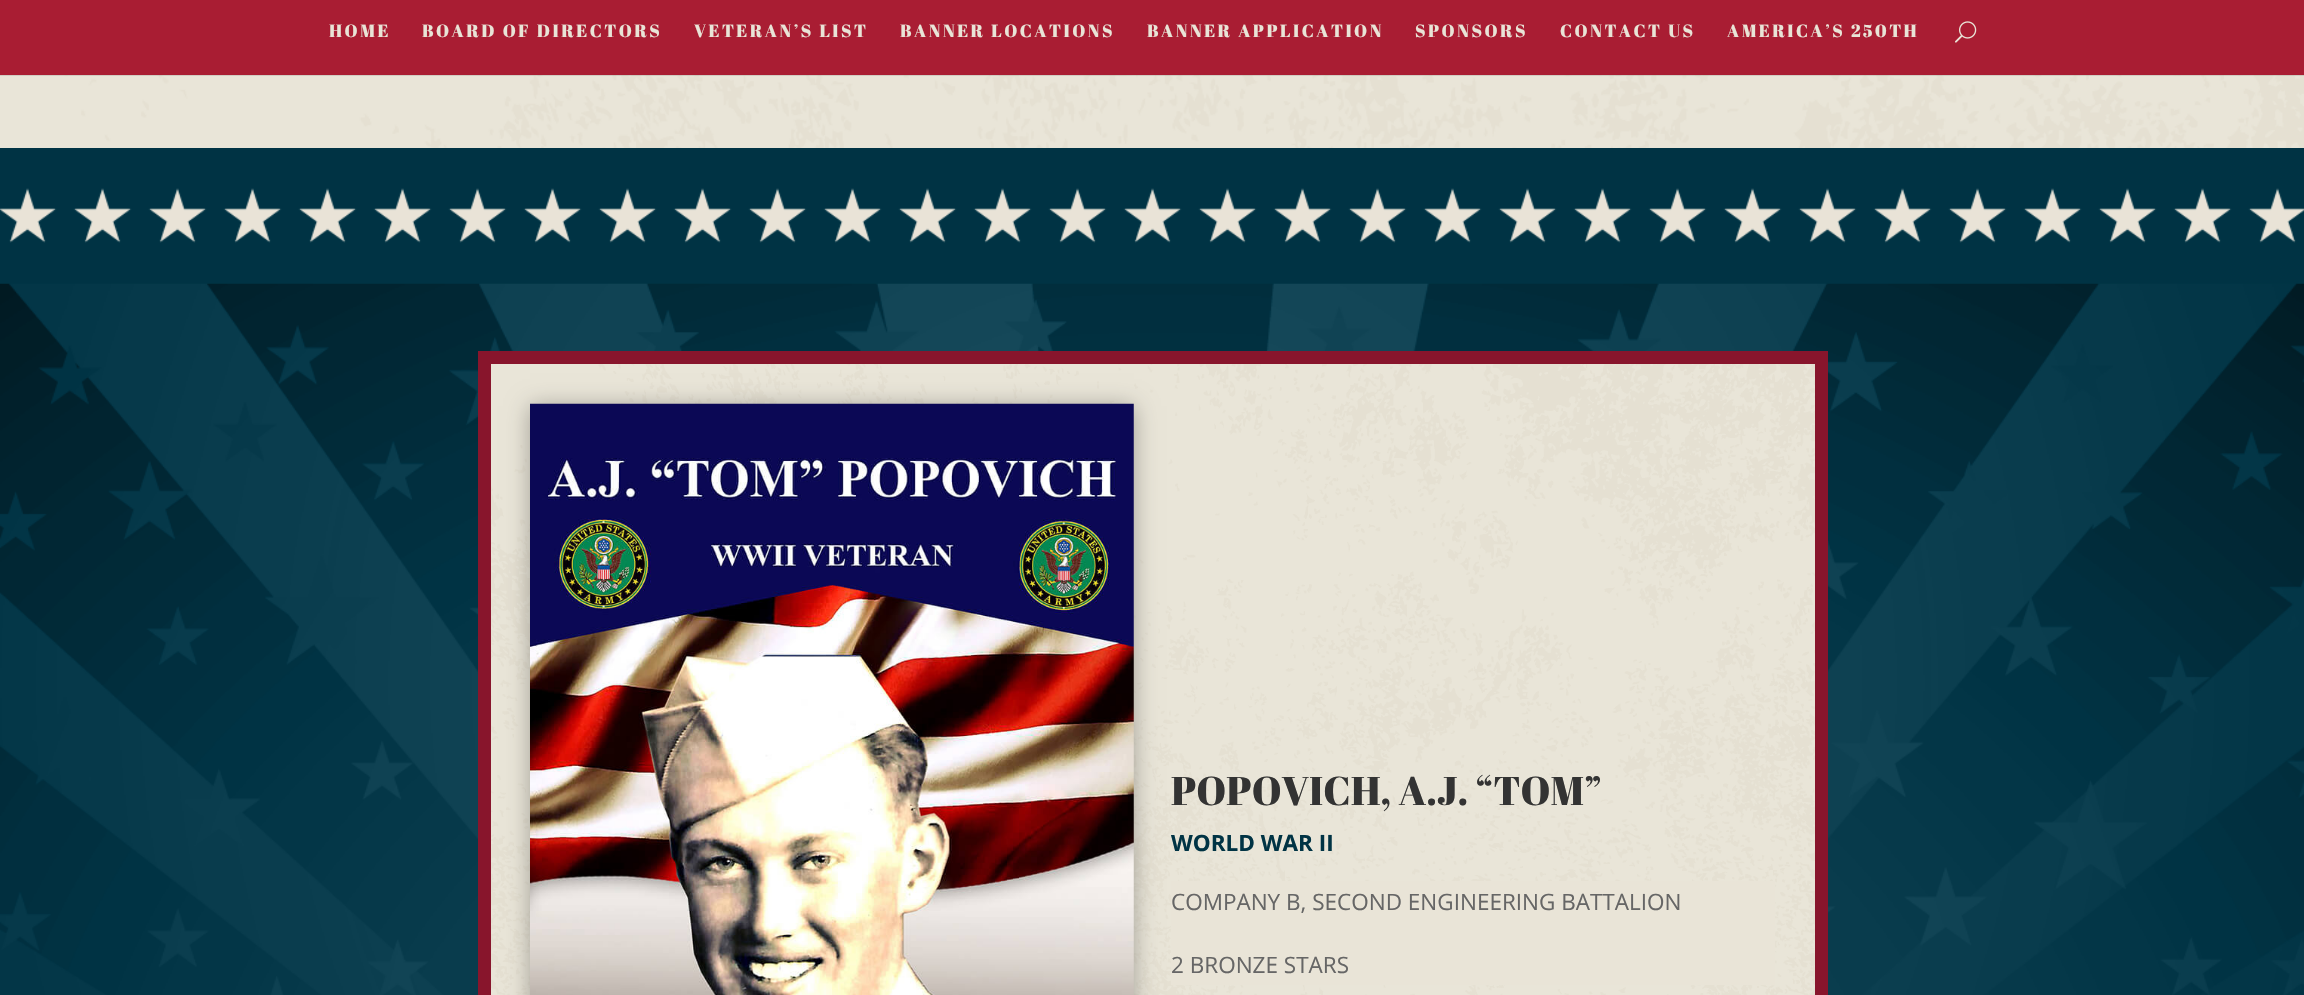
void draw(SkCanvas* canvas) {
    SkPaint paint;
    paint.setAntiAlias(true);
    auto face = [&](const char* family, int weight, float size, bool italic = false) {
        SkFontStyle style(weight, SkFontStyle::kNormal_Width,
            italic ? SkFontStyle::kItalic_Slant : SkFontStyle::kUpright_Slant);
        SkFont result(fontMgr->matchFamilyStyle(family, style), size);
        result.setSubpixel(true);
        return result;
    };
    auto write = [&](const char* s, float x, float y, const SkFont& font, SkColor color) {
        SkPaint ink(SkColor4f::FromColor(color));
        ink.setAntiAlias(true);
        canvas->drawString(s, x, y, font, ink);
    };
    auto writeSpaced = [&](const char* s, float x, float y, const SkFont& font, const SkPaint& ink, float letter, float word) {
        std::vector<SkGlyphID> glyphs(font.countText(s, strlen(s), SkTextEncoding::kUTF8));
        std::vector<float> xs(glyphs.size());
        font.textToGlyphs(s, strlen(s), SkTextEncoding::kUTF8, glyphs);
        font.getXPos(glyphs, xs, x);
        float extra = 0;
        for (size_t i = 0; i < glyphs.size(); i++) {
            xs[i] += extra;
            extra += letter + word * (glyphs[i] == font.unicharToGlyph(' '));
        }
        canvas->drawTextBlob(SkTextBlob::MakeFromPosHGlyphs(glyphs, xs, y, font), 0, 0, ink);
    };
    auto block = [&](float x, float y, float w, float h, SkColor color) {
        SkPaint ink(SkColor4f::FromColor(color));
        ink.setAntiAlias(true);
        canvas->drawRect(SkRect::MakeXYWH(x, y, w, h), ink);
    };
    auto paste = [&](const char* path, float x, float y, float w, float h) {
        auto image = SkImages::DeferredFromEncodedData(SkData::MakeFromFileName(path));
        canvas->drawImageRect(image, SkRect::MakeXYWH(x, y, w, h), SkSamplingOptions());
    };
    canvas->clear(SK_ColorWHITE);
    paste("pic1.png", 0, 75, 2304, 73);
    block(0, 75, 2304, 1, SkColorSetARGB(26, 0, 0, 0));
    block(0, 0, 2304, 75, SkColorSetRGB(169, 29, 51));
    auto kFont1 = face("Abril Fatface", 400, 17.5f);
    paint.setColor(SkColorSetRGB(233, 228, 215));
    writeSpaced("HOME", 329, 37, kFont1, paint, 2.5f, 0);
    writeSpaced("BOARD OF DIRECTORS", 422, 37, kFont1, paint, 2.5f, 0);
    writeSpaced("VETERAN’S LIST", 694, 37, kFont1, paint, 2.5f, 0);
    writeSpaced("BANNER LOCATIONS", 900, 37, kFont1, paint, 2.5f, 0);
    writeSpaced("BANNER APPLICATION", 1147, 37, kFont1, paint, 2.5f, 0);
    writeSpaced("SPONSORS", 1415, 37, kFont1, paint, 2.5f, 0);
    writeSpaced("CONTACT US", 1560, 37, kFont1, paint, 2.5f, 0);
    writeSpaced("AMERICA’S 250TH", 1727, 37, kFont1, paint, 2.5f, 0);
    paste("pic2.png", 1955, 21, 22, 22);
    block(0, 148, 2304, 136, SkColorSetRGB(0, 51, 68));
    paste("pic3.png", 0, 188, 2304, 55);
    paste("pic4.png", 0, 283, 2304, 712);
    paste("pic5.png", 491, 364, 1324, 631);
    paint.setStyle(SkPaint::kStroke_Style);
    paint.setStrokeWidth(13);
    paint.setColor(SkColorSetRGB(136, 21, 44));
    canvas->drawRect(SkRect::MakeXYWH(484.5f, 357.5f, 1337, 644), paint);
    paint.setStyle(SkPaint::kFill_Style);
    paint.setColor(SkColorSetARGB(77, 0, 0, 0));
    paint.setMaskFilter(SkMaskFilter::MakeBlur(kNormal_SkBlurStyle, 11));
    canvas->drawRect(SkRect::MakeXYWH(530, 406, 604, 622), paint);
    paint.setMaskFilter(nullptr);
    paste("pic6.png", 530, 403, 604, 592);
    auto kFont2 = face("Abril Fatface", 400, 40);
    write("POPOVICH, A.J. “TOM”", 1171, 805, kFont2, SkColorSetRGB(51, 51, 51));
    auto kFont3 = face("Open Sans", 700, 22.5f);
    write("WORLD WAR II", 1171, 851, kFont3, SkColorSetRGB(0, 51, 68));
    block(1171, 881, 604, 104, SkColorSetRGB(233, 228, 215));
    auto kFont4 = face("Open Sans", 400, 22.5f);
    write("COMPANY B, SECOND ENGINEERING BATTALION", 1171, 910, kFont4, SkColorSetRGB(102, 102, 102));
    write("2 BRONZE STARS", 1171, 973, kFont4, SkColorSetRGB(102, 102, 102));
}
